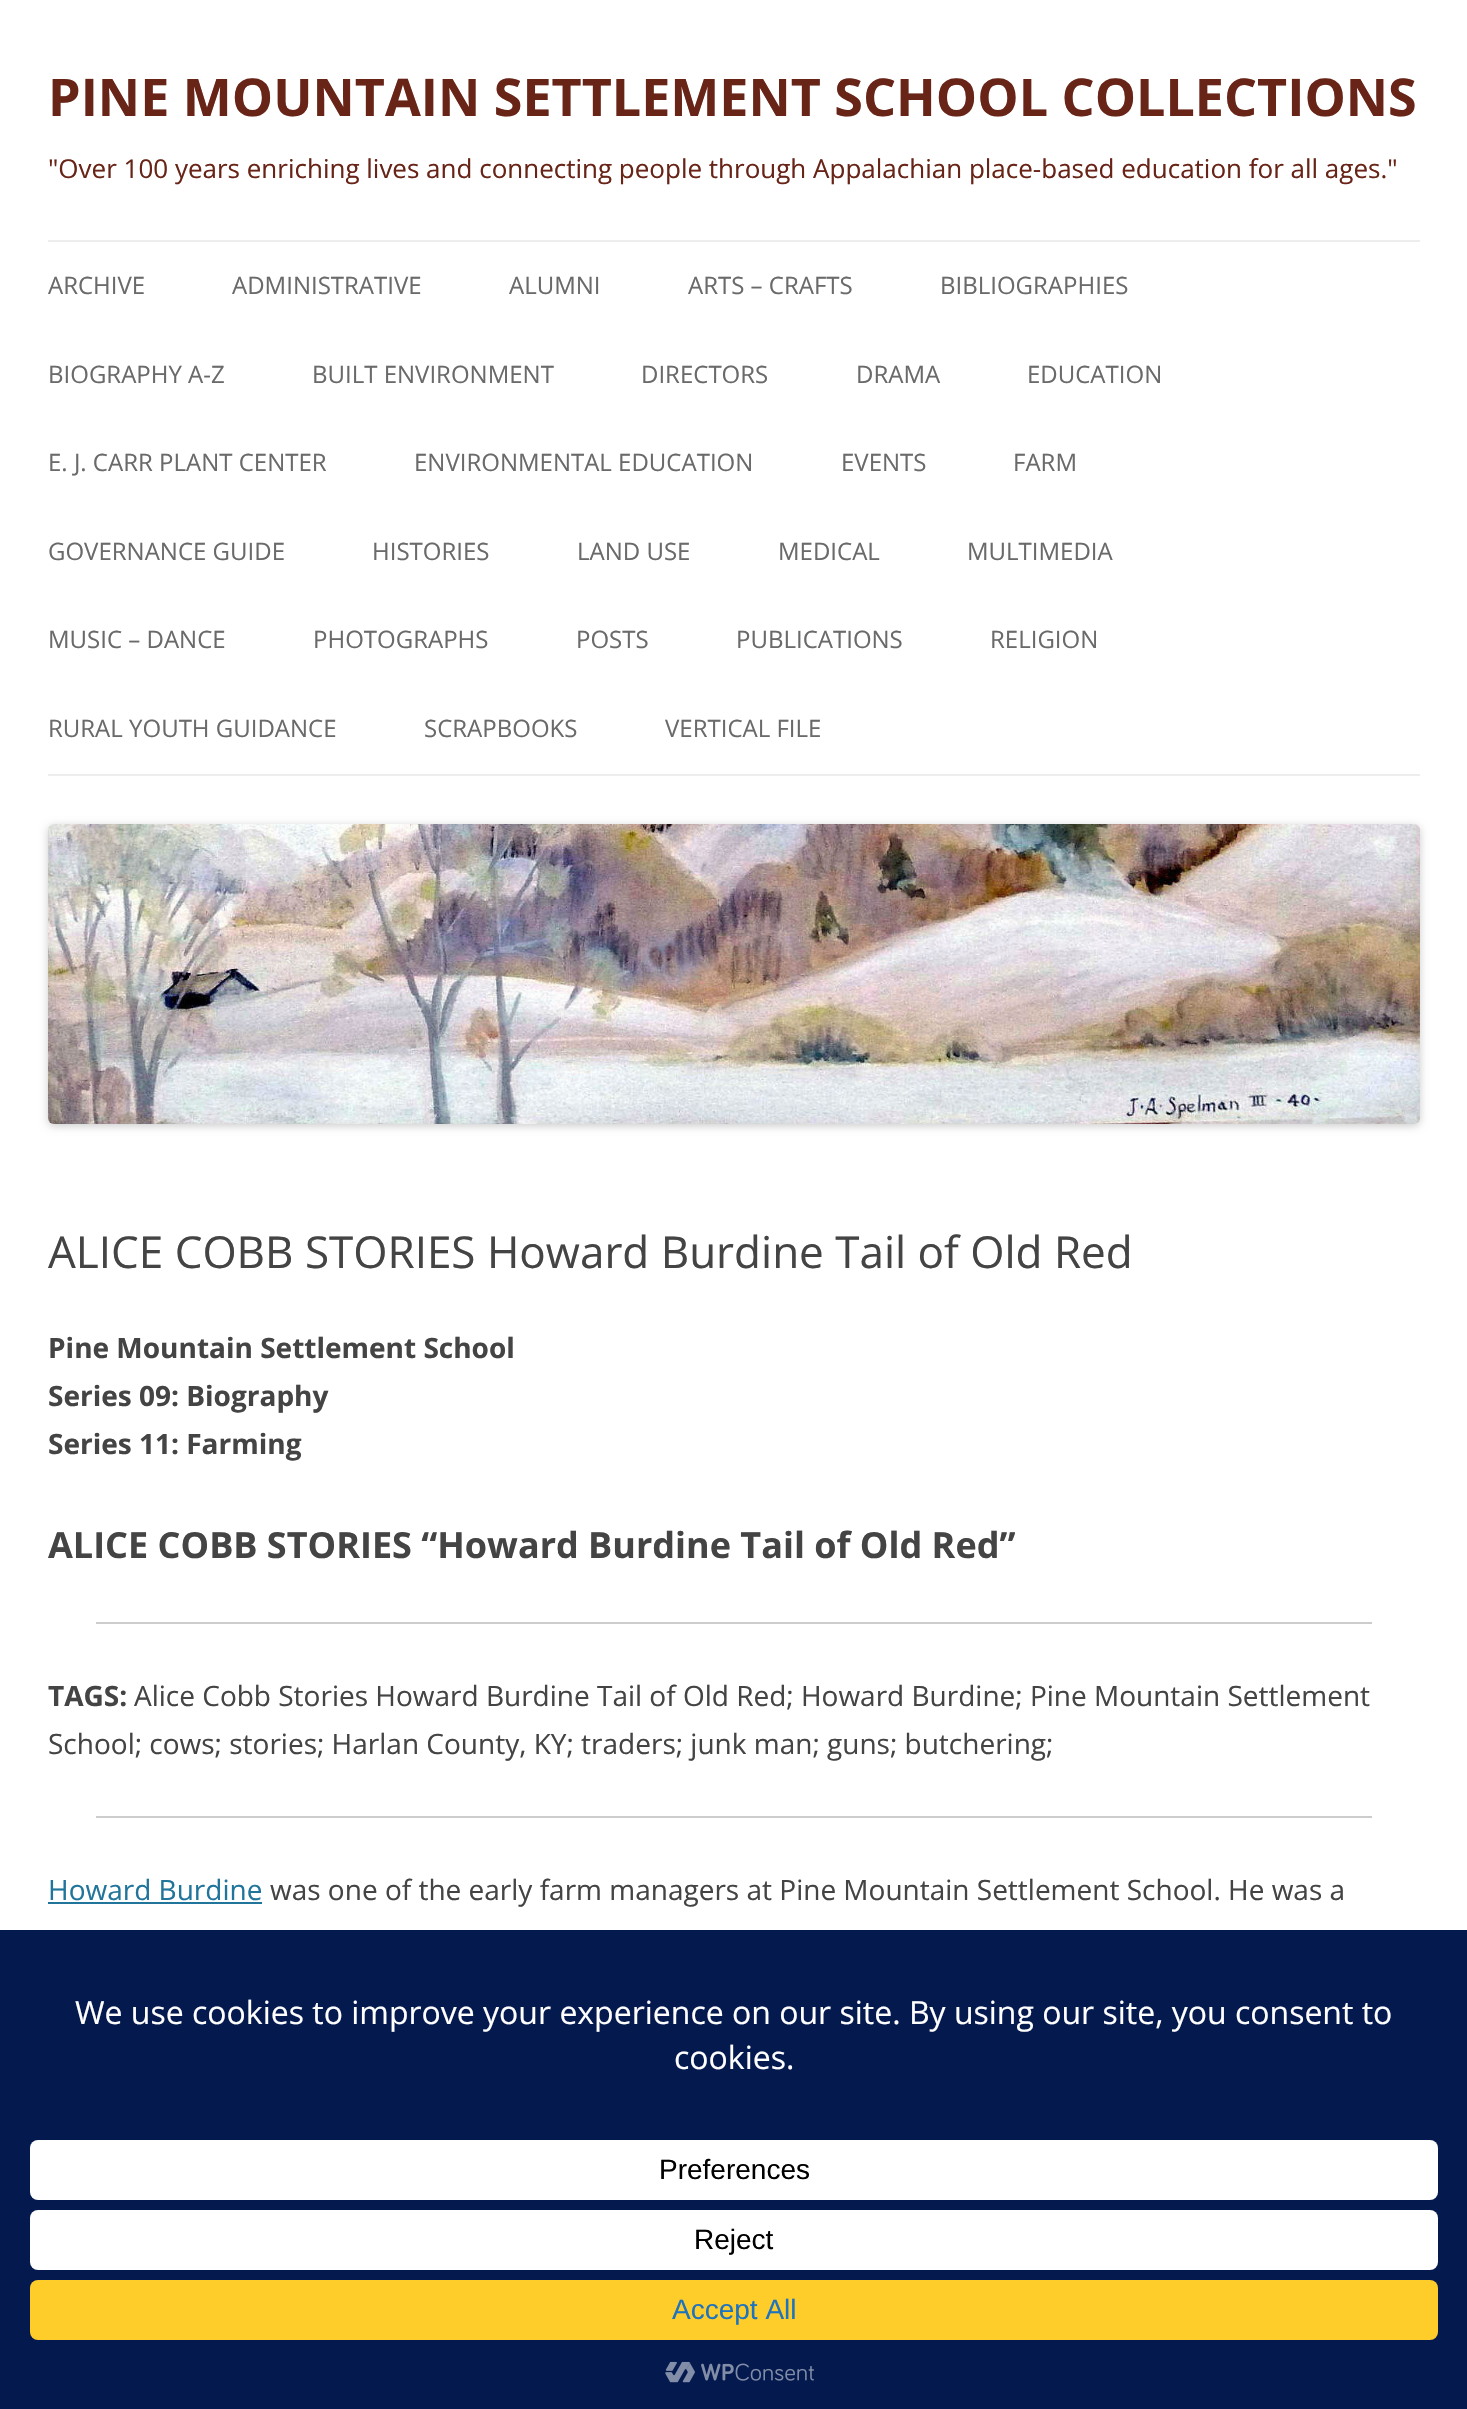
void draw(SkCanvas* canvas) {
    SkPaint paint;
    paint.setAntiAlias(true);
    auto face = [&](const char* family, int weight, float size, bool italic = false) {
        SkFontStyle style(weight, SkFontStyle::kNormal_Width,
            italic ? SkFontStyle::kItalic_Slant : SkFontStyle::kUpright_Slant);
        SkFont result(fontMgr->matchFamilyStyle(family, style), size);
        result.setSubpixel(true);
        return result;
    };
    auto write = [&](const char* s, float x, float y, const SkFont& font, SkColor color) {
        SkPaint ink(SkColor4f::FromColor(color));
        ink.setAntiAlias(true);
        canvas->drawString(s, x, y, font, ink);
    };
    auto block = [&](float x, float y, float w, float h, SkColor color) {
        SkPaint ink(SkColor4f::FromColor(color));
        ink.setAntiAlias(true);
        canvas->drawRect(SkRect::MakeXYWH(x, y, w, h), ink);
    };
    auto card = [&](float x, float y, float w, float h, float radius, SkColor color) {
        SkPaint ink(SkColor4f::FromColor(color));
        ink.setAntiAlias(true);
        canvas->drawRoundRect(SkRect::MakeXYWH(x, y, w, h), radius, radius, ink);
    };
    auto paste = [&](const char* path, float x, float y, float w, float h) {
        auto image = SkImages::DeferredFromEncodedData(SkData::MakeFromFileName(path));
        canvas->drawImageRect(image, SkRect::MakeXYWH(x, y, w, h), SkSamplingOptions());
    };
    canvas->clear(SK_ColorWHITE);
    auto kFont1 = face("Open Sans", 700, 52);
    write("PINE MOUNTAIN SETTLEMENT SCHOOL COLLECTIONS", 48, 116, kFont1, SkColorSetRGB(104, 36, 23));
    auto kFont2 = face("Open Sans", 400, 26);
    write("\"Over 100 years enriching lives and connecting people through Appalachian place-based education for all ages.\"", 48, 178, kFont2, SkColorSetRGB(104, 36, 23));
    block(48, 240, 1372, 2, SkColorSetRGB(237, 237, 237));
    block(48, 774, 1372, 2, SkColorSetRGB(237, 237, 237));
    auto kFont3 = face("Open Sans", 400, 24);
    write("ARCHIVE", 48, 294, kFont3, SkColorSetRGB(106, 106, 106));
    write("ADMINISTRATIVE", 232, 294, kFont3, SkColorSetRGB(106, 106, 106));
    write("ALUMNI", 509, 294, kFont3, SkColorSetRGB(106, 106, 106));
    write("ARTS – CRAFTS", 688, 294, kFont3, SkColorSetRGB(106, 106, 106));
    write("BIBLIOGRAPHIES", 940, 294, kFont3, SkColorSetRGB(106, 106, 106));
    write("BIOGRAPHY A-Z", 48, 383, kFont3, SkColorSetRGB(106, 106, 106));
    write("BUILT ENVIRONMENT", 312, 383, kFont3, SkColorSetRGB(106, 106, 106));
    write("DIRECTORS", 641, 383, kFont3, SkColorSetRGB(106, 106, 106));
    write("DRAMA", 856, 383, kFont3, SkColorSetRGB(106, 106, 106));
    write("EDUCATION", 1027, 383, kFont3, SkColorSetRGB(106, 106, 106));
    write("E. J. CARR PLANT CENTER", 48, 471, kFont3, SkColorSetRGB(106, 106, 106));
    write("ENVIRONMENTAL EDUCATION", 414, 471, kFont3, SkColorSetRGB(106, 106, 106));
    write("EVENTS", 841, 471, kFont3, SkColorSetRGB(106, 106, 106));
    write("FARM", 1013, 471, kFont3, SkColorSetRGB(106, 106, 106));
    write("GOVERNANCE GUIDE", 48, 560, kFont3, SkColorSetRGB(106, 106, 106));
    write("HISTORIES", 372, 560, kFont3, SkColorSetRGB(106, 106, 106));
    write("LAND USE", 577, 560, kFont3, SkColorSetRGB(106, 106, 106));
    write("MEDICAL", 778, 560, kFont3, SkColorSetRGB(106, 106, 106));
    write("MULTIMEDIA", 967, 560, kFont3, SkColorSetRGB(106, 106, 106));
    write("MUSIC – DANCE", 48, 648, kFont3, SkColorSetRGB(106, 106, 106));
    write("PHOTOGRAPHS", 313, 648, kFont3, SkColorSetRGB(106, 106, 106));
    write("POSTS", 576, 648, kFont3, SkColorSetRGB(106, 106, 106));
    write("PUBLICATIONS", 736, 648, kFont3, SkColorSetRGB(106, 106, 106));
    write("RELIGION", 990, 648, kFont3, SkColorSetRGB(106, 106, 106));
    write("RURAL YOUTH GUIDANCE", 48, 737, kFont3, SkColorSetRGB(106, 106, 106));
    write("SCRAPBOOKS", 424, 737, kFont3, SkColorSetRGB(106, 106, 106));
    write("VERTICAL FILE", 665, 737, kFont3, SkColorSetRGB(106, 106, 106));
    paint.setColor(SkColorSetARGB(51, 0, 0, 0));
    paint.setMaskFilter(SkMaskFilter::MakeBlur(kNormal_SkBlurStyle, 4));
    canvas->drawRoundRect(SkRect::MakeXYWH(48, 826, 1372, 300), 6, 6, paint);
    paint.setMaskFilter(nullptr);
    paste("pic1.png", 48, 824, 1372, 300);
    auto kFont4 = face("Open Sans", 400, 44);
    write("ALICE COBB STORIES Howard Burdine Tail of Old Red", 48, 1268, kFont4, SkColorSetRGB(68, 68, 68));
    auto kFont5 = face("Open Sans", 700, 28);
    write("Pine Mountain Settlement School", 48, 1358, kFont5, SkColorSetRGB(68, 68, 68));
    write("Series 09: Biography", 48, 1406, kFont5, SkColorSetRGB(68, 68, 68));
    write("Series 11: Farming", 48, 1454, kFont5, SkColorSetRGB(68, 68, 68));
    auto kFont6 = face("Open Sans", 700, 36);
    write("ALICE COBB STORIES “Howard Burdine Tail of Old Red”", 48, 1558, kFont6, SkColorSetRGB(68, 68, 68));
    block(96, 1622, 1276, 2, SkColorSetRGB(204, 204, 204));
    write("TAGS:", 48, 1706, kFont5, SkColorSetRGB(68, 68, 68));
    auto kFont7 = face("Open Sans", 400, 28);
    write("Alice Cobb Stories Howard Burdine Tail of Old Red; Howard Burdine; Pine Mountain Settlement", 134, 1706, kFont7, SkColorSetRGB(68, 68, 68));
    write("School; cows; stories; Harlan County, KY; traders; junk man; guns; butchering;", 48, 1754, kFont7, SkColorSetRGB(68, 68, 68));
    block(96, 1816, 1276, 2, SkColorSetRGB(204, 204, 204));
    write("Howard Burdine", 48, 1900, kFont7, SkColorSetRGB(33, 117, 155));
    block(48, 1902, 214, 2, SkColorSetRGB(33, 117, 155));
    write("was one of the early farm managers at Pine Mountain Settlement School. He was a", 270, 1900, kFont7, SkColorSetRGB(68, 68, 68));
    block(0, 1930, 1467, 479, SkColorSetRGB(4, 25, 78));
    auto kFont8 = face("Open Sans", 400, 32);
    write("We use cookies to improve your experience on our site. By using our site, you consent to", 75, 2024, kFont8, SK_ColorWHITE);
    write("cookies.", 674, 2069, kFont8, SK_ColorWHITE);
    card(30, 2140, 1408, 60, 8, SK_ColorWHITE);
    auto kFont9 = face("Liberation Sans", 400, 28);
    write("Preferences", 659, 2179, kFont9, SK_ColorBLACK);
    card(30, 2210, 1408, 60, 8, SK_ColorWHITE);
    write("Reject", 694, 2249, kFont9, SK_ColorBLACK);
    card(30, 2280, 1408, 60, 8, SkColorSetRGB(255, 205, 42));
    write("Accept All", 672, 2319, kFont9, SkColorSetRGB(30, 115, 190));
    paste("pic2.png", 665, 2361, 149, 22);
}
